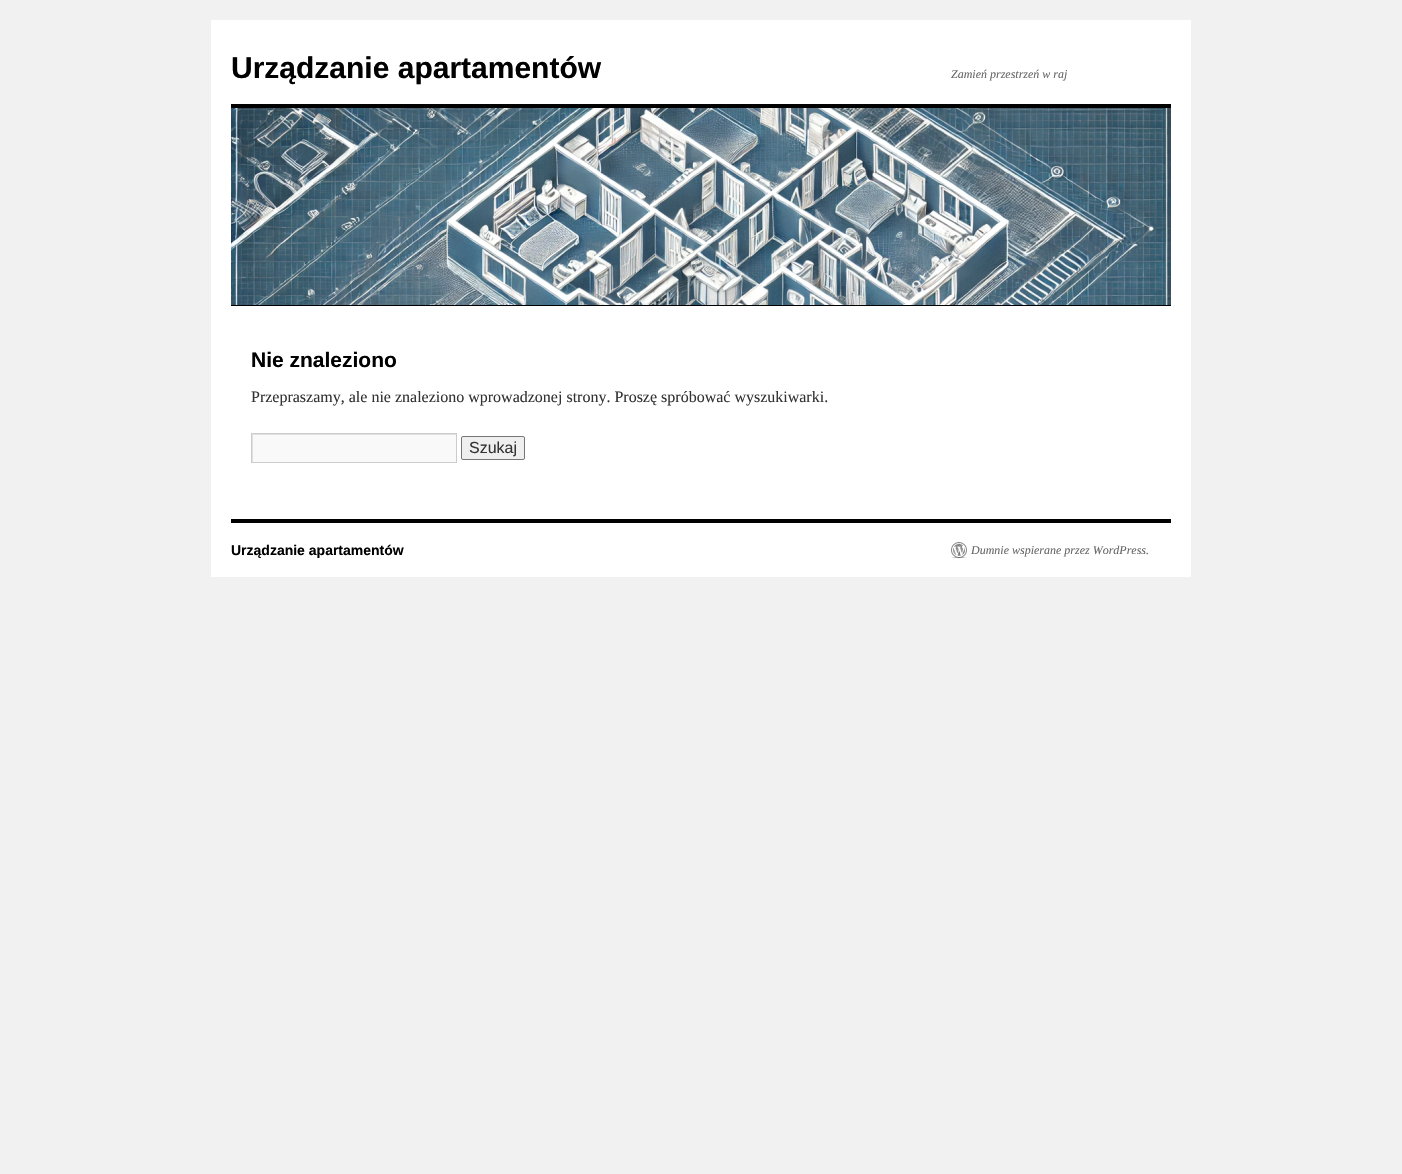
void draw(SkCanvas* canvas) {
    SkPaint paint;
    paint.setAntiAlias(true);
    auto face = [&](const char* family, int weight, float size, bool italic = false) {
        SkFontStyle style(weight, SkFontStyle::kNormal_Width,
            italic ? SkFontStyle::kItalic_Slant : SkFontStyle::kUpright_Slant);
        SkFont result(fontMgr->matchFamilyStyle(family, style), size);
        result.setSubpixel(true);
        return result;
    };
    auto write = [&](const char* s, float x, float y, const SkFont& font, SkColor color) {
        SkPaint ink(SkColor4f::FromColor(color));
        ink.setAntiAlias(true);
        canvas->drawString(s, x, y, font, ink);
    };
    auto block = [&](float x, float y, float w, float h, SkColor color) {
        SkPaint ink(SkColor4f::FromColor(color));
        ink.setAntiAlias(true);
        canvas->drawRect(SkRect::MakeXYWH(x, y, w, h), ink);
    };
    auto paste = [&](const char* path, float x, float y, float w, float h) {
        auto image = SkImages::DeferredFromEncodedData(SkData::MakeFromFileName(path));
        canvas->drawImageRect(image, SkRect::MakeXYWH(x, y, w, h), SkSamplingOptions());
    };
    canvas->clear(SkColorSetRGB(241, 241, 241));
    block(211, 20, 980, 557, SK_ColorWHITE);
    auto kFont1 = face("Liberation Sans", 700, 30);
    write("Urządzanie apartamentów", 231, 78, kFont1, SK_ColorBLACK);
    auto kFont2 = face("Liberation Serif", 400, 12, true);
    write("Zamień przestrzeń w raj", 951, 78, kFont2, SkColorSetRGB(102, 102, 102));
    block(231, 104, 940, 4, SK_ColorBLACK);
    block(231, 305, 940, 1, SK_ColorBLACK);
    paste("pic1.png", 231, 108, 940, 197);
    auto kFont3 = face("Liberation Sans", 700, 21);
    write("Nie znaleziono", 251, 367, kFont3, SK_ColorBLACK);
    auto kFont4 = face("Liberation Serif", 400, 16);
    write("Przepraszamy, ale nie znaleziono wprowadzonej strony. Proszę spróbować wyszukiwarki.", 251, 402, kFont4, SkColorSetRGB(51, 51, 51));
    block(253, 435, 203, 27, SkColorSetRGB(249, 249, 249));
    canvas->save();
    canvas->clipRect(SkRect::MakeXYWH(252, 434, 204, 28));
    paint.setColor(SkColorSetRGB(224, 224, 224));
    canvas->drawPath(SkPathBuilder(SkPathFillType::kEvenOdd).moveTo(153, 335).lineTo(555, 335).lineTo(555, 561).lineTo(153, 561).close().moveTo(253, 435).lineTo(457, 435).lineTo(457, 463).lineTo(253, 463).close().detach(), paint);
    canvas->restore();
    paint.setStyle(SkPaint::kStroke_Style);
    paint.setStrokeWidth(1);
    paint.setColor(SkColorSetRGB(204, 204, 204));
    canvas->drawRect(SkRect::MakeXYWH(251.5f, 433.5f, 205, 29), paint);
    paint.setStyle(SkPaint::kFill_Style);
    paint.setColor(SkColorSetRGB(239, 239, 239));
    canvas->drawRoundRect(SkRect::MakeXYWH(461.5f, 436.5f, 63, 23), 1.5f, 1.5f, paint);
    paint.setStyle(SkPaint::kStroke_Style);
    paint.setColor(SkColorSetRGB(118, 118, 118));
    canvas->drawRoundRect(SkRect::MakeXYWH(461.5f, 436.5f, 63, 23), 1.5f, 1.5f, paint);
    auto kFont5 = face("Liberation Sans", 400, 16);
    write("Szukaj", 469, 453, kFont5, SkColorSetRGB(51, 51, 51));
    block(231, 519, 940, 4, SK_ColorBLACK);
    auto kFont6 = face("Liberation Sans", 700, 14);
    write("Urządzanie apartamentów", 231, 555, kFont6, SK_ColorBLACK);
    paste("pic2.png", 951, 542, 16, 16);
    write("Dumnie wspierane przez WordPress.", 971, 554, kFont2, SkColorSetRGB(102, 102, 102));
}
